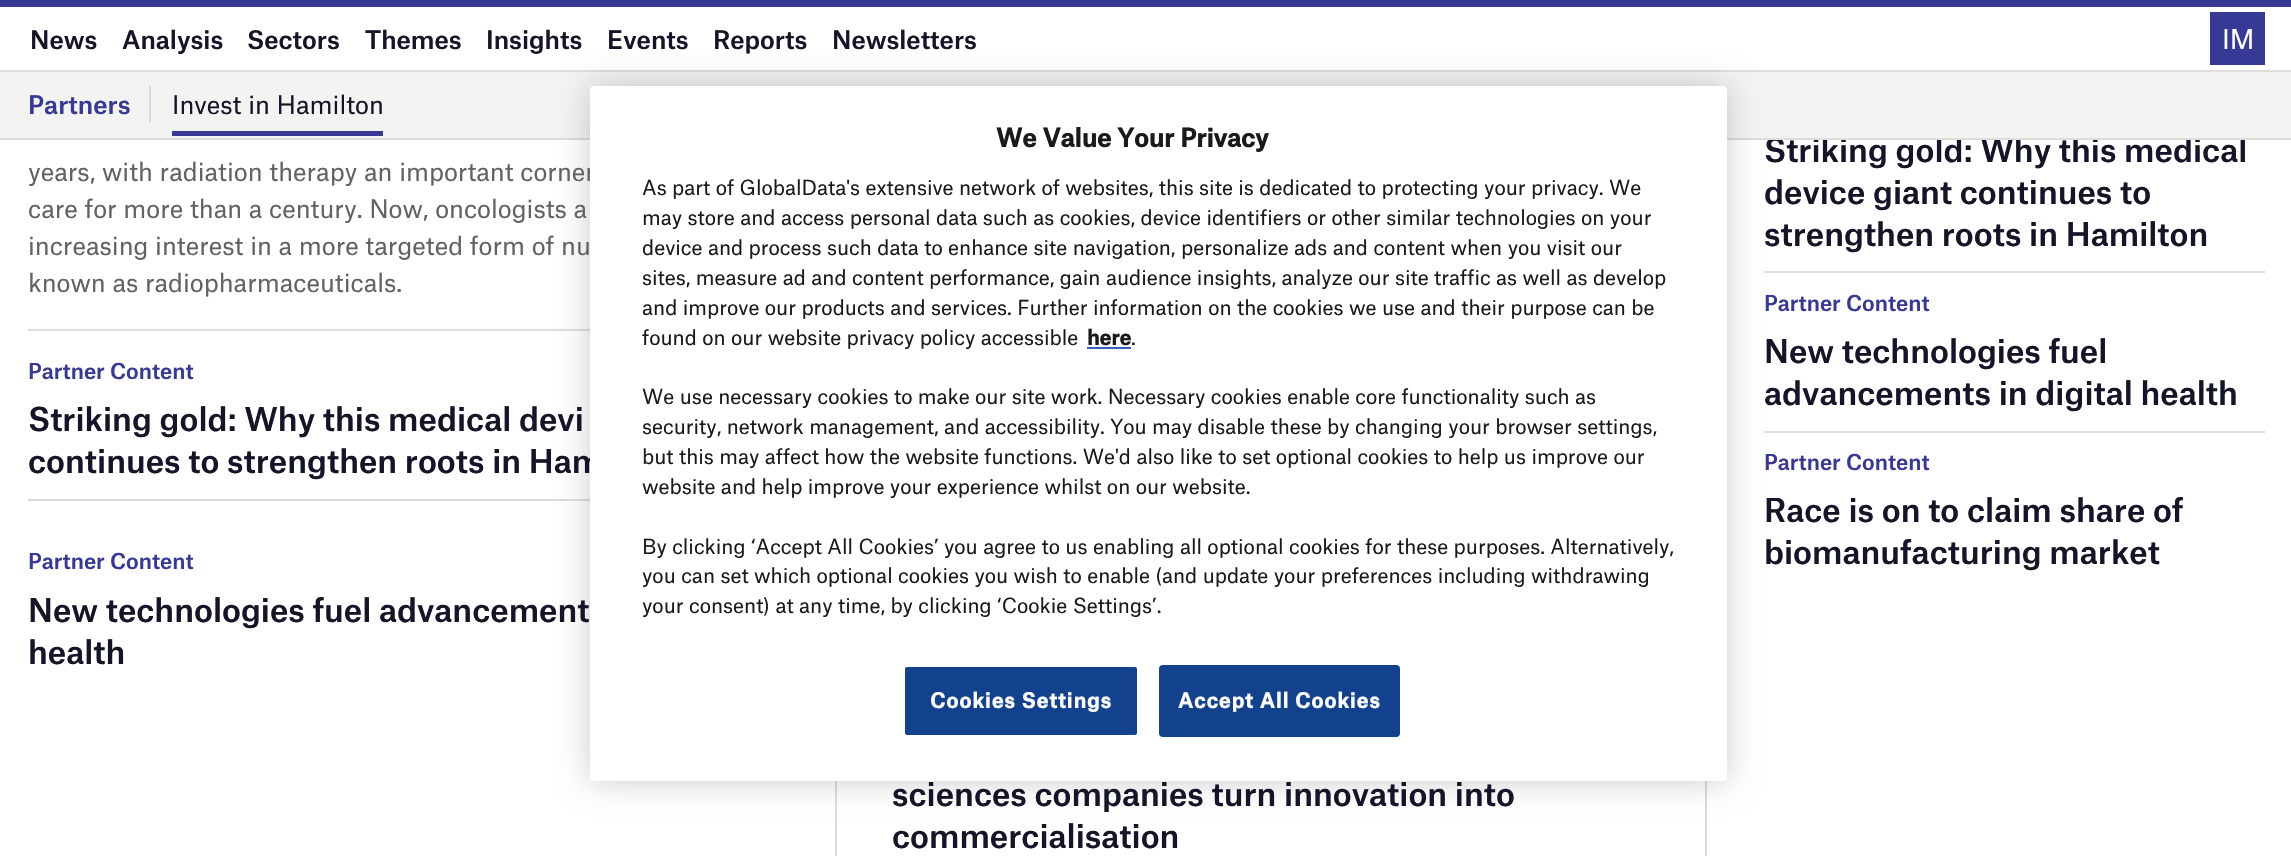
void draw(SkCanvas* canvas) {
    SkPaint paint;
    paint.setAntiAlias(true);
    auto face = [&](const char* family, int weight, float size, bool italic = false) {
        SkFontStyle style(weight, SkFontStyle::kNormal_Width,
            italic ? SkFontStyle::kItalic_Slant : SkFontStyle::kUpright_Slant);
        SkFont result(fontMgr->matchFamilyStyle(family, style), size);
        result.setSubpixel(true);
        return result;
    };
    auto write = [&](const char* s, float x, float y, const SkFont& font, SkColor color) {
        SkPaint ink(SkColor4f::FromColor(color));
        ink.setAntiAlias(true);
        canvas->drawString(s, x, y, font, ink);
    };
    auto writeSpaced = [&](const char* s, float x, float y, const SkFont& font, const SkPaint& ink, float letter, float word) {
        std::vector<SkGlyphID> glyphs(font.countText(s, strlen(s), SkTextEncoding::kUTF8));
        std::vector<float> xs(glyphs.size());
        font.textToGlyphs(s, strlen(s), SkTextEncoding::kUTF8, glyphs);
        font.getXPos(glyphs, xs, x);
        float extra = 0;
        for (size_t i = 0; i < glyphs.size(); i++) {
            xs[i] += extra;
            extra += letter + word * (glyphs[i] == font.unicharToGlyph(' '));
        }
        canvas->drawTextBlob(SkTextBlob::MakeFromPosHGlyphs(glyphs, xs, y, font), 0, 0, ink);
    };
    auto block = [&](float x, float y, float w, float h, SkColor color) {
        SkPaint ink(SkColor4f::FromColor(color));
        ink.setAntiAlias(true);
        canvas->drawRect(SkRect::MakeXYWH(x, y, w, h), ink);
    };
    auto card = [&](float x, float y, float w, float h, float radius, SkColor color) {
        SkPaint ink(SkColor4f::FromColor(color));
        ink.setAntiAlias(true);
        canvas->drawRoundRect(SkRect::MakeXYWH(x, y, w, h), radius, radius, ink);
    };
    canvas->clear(SK_ColorWHITE);
    block(0, 0, 2291, 7, SkColorSetRGB(55, 57, 151));
    block(0, 70, 2291, 2, SkColorSetRGB(221, 221, 221));
    auto kFont1 = face("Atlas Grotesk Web", 500, 24.5f);
    write("News", 30, 49, kFont1, SkColorSetRGB(21, 21, 41));
    write("Analysis", 122, 49, kFont1, SkColorSetRGB(21, 21, 41));
    write("Sectors", 247, 49, kFont1, SkColorSetRGB(21, 21, 41));
    write("Themes", 365, 49, kFont1, SkColorSetRGB(21, 21, 41));
    write("Insights", 486, 49, kFont1, SkColorSetRGB(21, 21, 41));
    write("Events", 607, 49, kFont1, SkColorSetRGB(21, 21, 41));
    write("Reports", 713, 49, kFont1, SkColorSetRGB(21, 21, 41));
    write("Newsletters", 832, 49, kFont1, SkColorSetRGB(21, 21, 41));
    block(2210, 12, 55, 53, SkColorSetRGB(55, 57, 151));
    auto kFont2 = face("Atlas Grotesk Web", 400, 26);
    write("IM", 2222, 49, kFont2, SK_ColorWHITE);
    auto kFont3 = face("Atlas Grotesk Web", 500, 31.5f);
    write("Striking gold: Why this medical", 1764, 162, kFont3, SkColorSetRGB(21, 21, 41));
    block(0, 72, 2291, 66, SkColorSetRGB(243, 243, 241));
    block(0, 138, 2291, 2, SkColorSetRGB(221, 221, 221));
    write("Partners", 28, 114, kFont1, SkColorSetRGB(55, 57, 151));
    block(149, 86, 2, 37, SkColorSetRGB(219, 219, 219));
    block(172, 131, 211, 5, SkColorSetRGB(55, 57, 151));
    auto kFont4 = face("Atlas Grotesk Web", 400, 24.5f);
    write("Invest in Hamilton", 172, 114, kFont4, SkColorSetRGB(21, 21, 41));
    block(1705, 781, 2, 75, SkColorSetRGB(219, 219, 219));
    block(28, 329, 562, 2, SkColorSetRGB(221, 221, 221));
    block(835, 781, 2, 75, SkColorSetRGB(221, 221, 221));
    block(28, 499, 562, 2, SkColorSetRGB(221, 221, 221));
    block(1764, 271, 501, 2, SkColorSetRGB(221, 221, 221));
    block(1764, 431, 501, 2, SkColorSetRGB(221, 221, 221));
    paint.setColor(SkColorSetARGB(51, 0, 0, 0));
    paint.setMaskFilter(SkMaskFilter::MakeBlur(kNormal_SkBlurStyle, 16));
    canvas->drawRoundRect(SkRect::MakeXYWH(590, 86, 1137, 695), 4, 4, paint);
    paint.setMaskFilter(nullptr);
    write("years, with radiation therapy an important corner", 28, 181, kFont4, SkColorSetRGB(98, 98, 98));
    write("continues to strengthen roots in Ham", 28, 473, kFont3, SkColorSetRGB(21, 21, 41));
    card(590, 86, 1137, 695, 4, SK_ColorWHITE);
    auto kFont5 = face("Atlas Grotesk Web", 700, 24.5f);
    write("We Value Your Privacy", 996, 147, kFont5, SkColorSetRGB(26, 26, 26));
    auto kFont6 = face("Atlas Grotesk Web", 400, 19.92f);
    write("As part of GlobalData's extensive network of websites, this site is dedicated to protecting your privacy. We", 642, 195, kFont6, SkColorSetRGB(26, 26, 26));
    write("may store and access personal data such as cookies, device identifiers or other similar technologies on your", 642, 225, kFont6, SkColorSetRGB(26, 26, 26));
    write("device and process such data to enhance site navigation,", 642, 255, kFont6, SkColorSetRGB(26, 26, 26));
    write("personalize ads and content when you visit our", 1181, 255, kFont6, SkColorSetRGB(26, 26, 26));
    write("sites, measure ad and content performance, gain audience insights, analyze our site traffic as well as develop", 642, 285, kFont6, SkColorSetRGB(26, 26, 26));
    write("and improve our products and services. Further information on the cookies we use and their purpose can be", 642, 315, kFont6, SkColorSetRGB(26, 26, 26));
    write("found on our website privacy policy accessible", 642, 345, kFont6, SkColorSetRGB(26, 26, 26));
    auto kFont7 = face("Atlas Grotesk Web", 700, 19.92f);
    write("here", 1087, 345, kFont7, SkColorSetRGB(26, 26, 26));
    block(1087, 347, 44, 2, SkColorSetRGB(56, 96, 190));
    write(".", 1131, 345, kFont6, SkColorSetRGB(26, 26, 26));
    write("We use necessary cookies to make our site work. Necessary cookies enable core functionality such as", 642, 404, kFont6, SkColorSetRGB(26, 26, 26));
    write("security, network management, and accessibility. You may disable these by changing your browser settings,", 642, 434, kFont6, SkColorSetRGB(26, 26, 26));
    write("but this may affect how the website functions. We'd also like to set optional cookies to help us improve our", 642, 464, kFont6, SkColorSetRGB(26, 26, 26));
    write("website and help improve your experience whilst on our website.", 642, 494, kFont6, SkColorSetRGB(26, 26, 26));
    write("By clicking ‘Accept All Cookies’ you agree to us enabling all optional cookies for these purposes. Alternatively,", 642, 554, kFont6, SkColorSetRGB(26, 26, 26));
    write("you can set which optional cookies you wish to enable (and update your preferences including withdrawing", 642, 583, kFont6, SkColorSetRGB(26, 26, 26));
    write("your consent) at any time, by clicking ‘Cookie Settings’.", 642, 613, kFont6, SkColorSetRGB(26, 26, 26));
    paint.setColor(SkColorSetRGB(18, 65, 141));
    canvas->drawRoundRect(SkRect::MakeXYWH(904, 666, 234, 70), 3, 3, paint);
    paint.setStyle(SkPaint::kStroke_Style);
    paint.setStrokeWidth(2);
    paint.setColor(SK_ColorWHITE);
    canvas->drawRoundRect(SkRect::MakeXYWH(904, 666, 234, 70), 3, 3, paint);
    paint.setStyle(SkPaint::kFill_Style);
    writeSpaced("Cookies Settings", 930, 708, kFont7, paint, 1, 0);
    paint.setColor(SkColorSetRGB(18, 65, 141));
    canvas->drawRoundRect(SkRect::MakeXYWH(1160, 666, 239, 70), 3, 3, paint);
    paint.setStyle(SkPaint::kStroke_Style);
    canvas->drawRoundRect(SkRect::MakeXYWH(1160, 666, 239, 70), 3, 3, paint);
    paint.setStyle(SkPaint::kFill_Style);
    paint.setColor(SK_ColorWHITE);
    writeSpaced("Accept All Cookies", 1178, 708, kFont7, paint, 1, 0);
    write("care for more than a century. Now, oncologists a", 28, 218, kFont4, SkColorSetRGB(98, 98, 98));
    write("increasing interest in a more targeted form of nu", 28, 255, kFont4, SkColorSetRGB(98, 98, 98));
    write("known as radiopharmaceuticals.", 28, 292, kFont4, SkColorSetRGB(98, 98, 98));
    auto kFont8 = face("Atlas Grotesk Web", 500, 21);
    write("Partner Content", 28, 379, kFont8, SkColorSetRGB(55, 57, 151));
    write("Striking gold: Why this medical devi", 28, 431, kFont3, SkColorSetRGB(21, 21, 41));
    write("Partner Content", 28, 569, kFont8, SkColorSetRGB(55, 57, 151));
    write("New technologies fuel advancement", 28, 622, kFont3, SkColorSetRGB(21, 21, 41));
    write("health", 28, 664, kFont3, SkColorSetRGB(21, 21, 41));
    write("sciences companies turn innovation into", 892, 806, kFont3, SkColorSetRGB(21, 21, 41));
    write("commercialisation", 892, 848, kFont3, SkColorSetRGB(21, 21, 41));
    write("device giant continues to", 1764, 204, kFont3, SkColorSetRGB(21, 21, 41));
    write("strengthen roots in Hamilton", 1764, 246, kFont3, SkColorSetRGB(21, 21, 41));
    write("Partner Content", 1764, 311, kFont8, SkColorSetRGB(55, 57, 151));
    write("New technologies fuel", 1764, 363, kFont3, SkColorSetRGB(21, 21, 41));
    write("advancements in digital health", 1764, 405, kFont3, SkColorSetRGB(21, 21, 41));
    write("Partner Content", 1764, 470, kFont8, SkColorSetRGB(55, 57, 151));
    write("Race is on to claim share of", 1764, 522, kFont3, SkColorSetRGB(21, 21, 41));
    write("biomanufacturing market", 1764, 564, kFont3, SkColorSetRGB(21, 21, 41));
}
